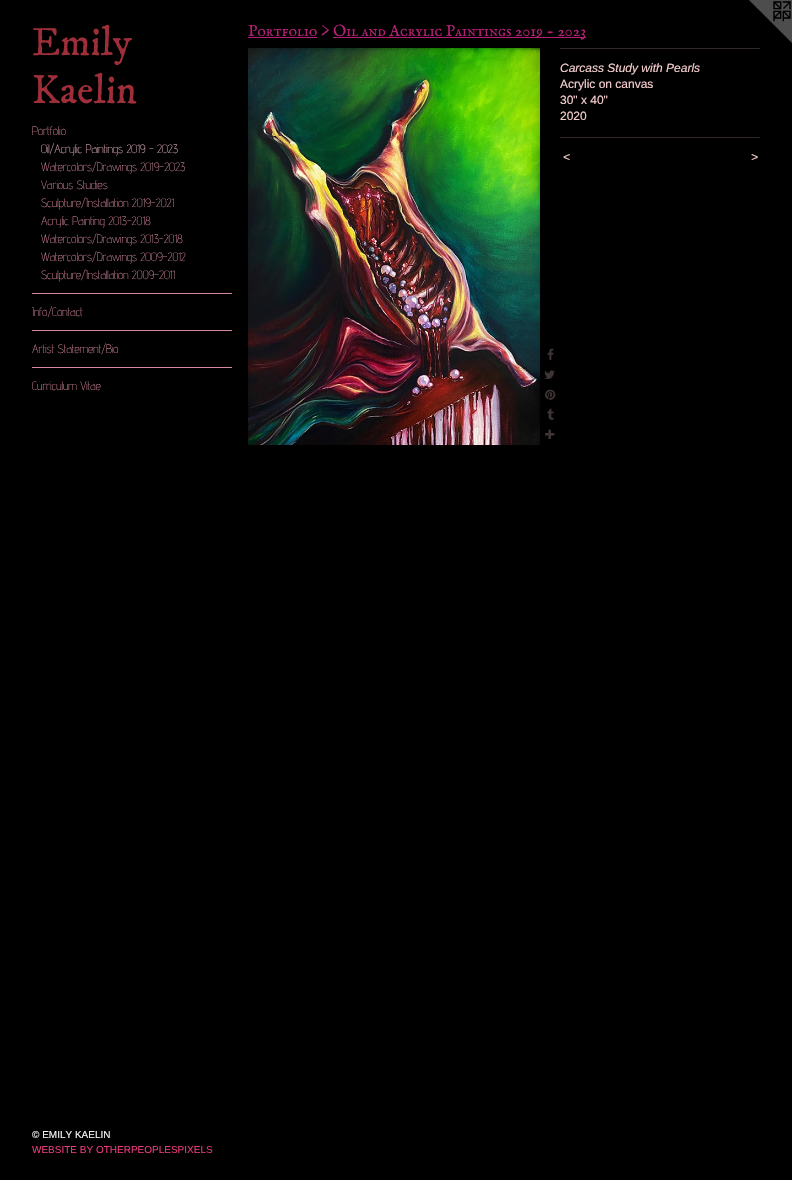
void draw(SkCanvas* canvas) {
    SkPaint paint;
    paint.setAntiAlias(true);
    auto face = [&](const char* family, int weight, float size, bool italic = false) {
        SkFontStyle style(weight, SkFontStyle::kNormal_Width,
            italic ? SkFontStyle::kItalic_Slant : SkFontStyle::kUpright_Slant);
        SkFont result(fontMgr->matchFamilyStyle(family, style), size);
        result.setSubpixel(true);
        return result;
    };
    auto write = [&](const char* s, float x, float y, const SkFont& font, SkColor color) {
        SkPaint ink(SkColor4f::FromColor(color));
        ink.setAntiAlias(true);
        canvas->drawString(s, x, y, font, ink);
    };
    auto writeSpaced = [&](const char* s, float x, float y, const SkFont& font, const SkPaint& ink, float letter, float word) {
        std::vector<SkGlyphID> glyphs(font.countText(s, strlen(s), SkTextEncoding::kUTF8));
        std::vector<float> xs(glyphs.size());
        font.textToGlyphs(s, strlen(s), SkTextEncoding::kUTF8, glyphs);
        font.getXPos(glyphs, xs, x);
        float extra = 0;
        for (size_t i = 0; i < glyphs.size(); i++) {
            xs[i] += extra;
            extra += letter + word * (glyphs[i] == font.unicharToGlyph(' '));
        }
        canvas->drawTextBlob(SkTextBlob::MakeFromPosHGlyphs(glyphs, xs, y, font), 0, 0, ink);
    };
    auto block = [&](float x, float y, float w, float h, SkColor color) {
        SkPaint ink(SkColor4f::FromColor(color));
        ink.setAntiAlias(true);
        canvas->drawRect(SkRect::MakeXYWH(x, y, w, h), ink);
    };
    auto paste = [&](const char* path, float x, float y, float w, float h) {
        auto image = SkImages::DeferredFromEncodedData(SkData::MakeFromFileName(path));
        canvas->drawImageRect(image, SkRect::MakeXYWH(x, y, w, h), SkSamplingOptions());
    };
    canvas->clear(SK_ColorBLACK);
    auto kFont1 = face("IM FELL DW Pica", 400, 40);
    write("Emily", 32, 55, kFont1, SkColorSetRGB(158, 46, 57));
    write("Kaelin", 32, 103, kFont1, SkColorSetRGB(158, 46, 57));
    auto kFont2 = face("Advent Pro", 200, 12);
    write("Portfolio", 32, 135, kFont2, SkColorSetRGB(215, 137, 157));
    write("Oil/Acrylic Paintings 2019 - 2023", 41, 153, kFont2, SkColorSetRGB(228, 175, 189));
    write("Watercolors/Drawings 2019-2023", 41, 171, kFont2, SkColorSetRGB(215, 137, 157));
    write("Various Studies", 41, 189, kFont2, SkColorSetRGB(215, 137, 157));
    write("Sculpture/Installation 2019-2021", 41, 207, kFont2, SkColorSetRGB(215, 137, 157));
    write("Acrylic Painting 2013-2018", 41, 225, kFont2, SkColorSetRGB(215, 137, 157));
    write("Watercolors/Drawings 2013-2018", 41, 243, kFont2, SkColorSetRGB(215, 137, 157));
    write("Watercolors/Drawings 2009-2012", 41, 261, kFont2, SkColorSetRGB(215, 137, 157));
    write("Sculpture/Installation 2009-2011", 41, 279, kFont2, SkColorSetRGB(215, 137, 157));
    block(32, 293, 200, 1, SkColorSetRGB(215, 137, 157));
    write("Info/Contact", 32, 316, kFont2, SkColorSetRGB(215, 137, 157));
    block(32, 330, 200, 1, SkColorSetRGB(215, 137, 157));
    write("Artist Statement/Bio", 32, 353, kFont2, SkColorSetRGB(215, 137, 157));
    block(32, 367, 200, 1, SkColorSetRGB(215, 137, 157));
    write("Curriculum Vitae", 32, 390, kFont2, SkColorSetRGB(215, 137, 157));
    auto kFont3 = face("Liberation Sans", 400, 10);
    write("© EMILY KAELIN", 32, 1138, kFont3, SkColorSetRGB(246, 245, 243));
    write("WEBSITE BY OTHERPEOPLESPIXELS", 32, 1153, kFont3, SkColorSetRGB(233, 58, 126));
    auto kFont4 = face("IM FELL English SC", 400, 16);
    write("Portfolio >", 248, 36, kFont4, SkColorSetRGB(178, 31, 116));
    block(248, 37, 69, 1, SkColorSetRGB(178, 31, 116));
    block(333, 37, 253, 1, SkColorSetRGB(178, 31, 116));
    write("Oil and Acrylic Paintings 2019 - 2023", 333, 36, kFont4, SkColorSetRGB(178, 31, 116));
    paste("pic1.png", 248, 48, 292, 397);
    paste("pic2.png", 547, 348, 7, 12);
    paste("pic3.png", 544, 370, 11, 9);
    paste("pic4.png", 545, 389, 11, 11);
    paste("pic5.png", 547, 408, 7, 12);
    paste("pic6.png", 545, 429, 10, 10);
    block(560, 48, 200, 1, SkColorSetRGB(49, 41, 41));
    auto kFont5 = face("Liberation Sans", 400, 12, true);
    write("Carcass Study with Pearls", 560, 72, kFont5, SkColorSetRGB(247, 207, 207));
    auto kFont6 = face("Liberation Sans", 400, 12);
    write("Acrylic on canvas", 560, 88, kFont6, SkColorSetRGB(247, 207, 207));
    write("30\" x 40\"", 560, 104, kFont6, SkColorSetRGB(247, 207, 207));
    write("2020", 560, 120, kFont6, SkColorSetRGB(247, 207, 207));
    block(560, 137, 200, 1, SkColorSetRGB(49, 41, 41));
    paint.setColor(SkColorSetRGB(247, 207, 207));
    writeSpaced("<", 563, 161, kFont5, paint, 1, 0);
    writeSpaced(">", 751, 161, kFont5, paint, 1, 0);
    paste("pic7.png", 749, 0, 43, 43);
}
